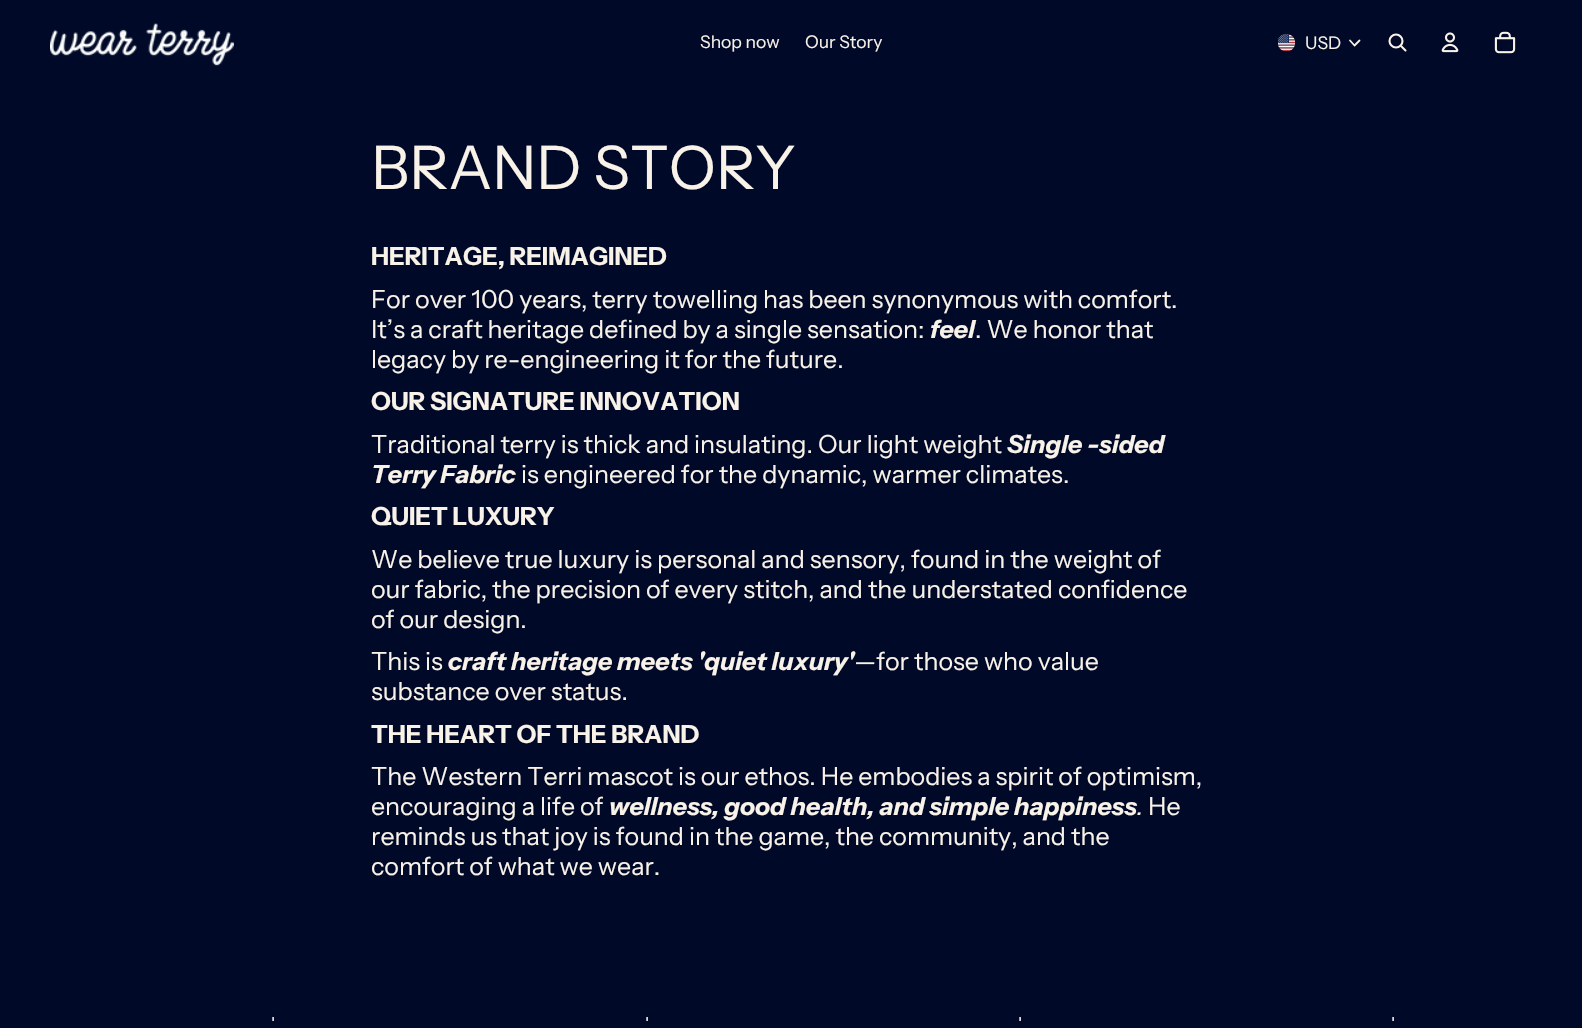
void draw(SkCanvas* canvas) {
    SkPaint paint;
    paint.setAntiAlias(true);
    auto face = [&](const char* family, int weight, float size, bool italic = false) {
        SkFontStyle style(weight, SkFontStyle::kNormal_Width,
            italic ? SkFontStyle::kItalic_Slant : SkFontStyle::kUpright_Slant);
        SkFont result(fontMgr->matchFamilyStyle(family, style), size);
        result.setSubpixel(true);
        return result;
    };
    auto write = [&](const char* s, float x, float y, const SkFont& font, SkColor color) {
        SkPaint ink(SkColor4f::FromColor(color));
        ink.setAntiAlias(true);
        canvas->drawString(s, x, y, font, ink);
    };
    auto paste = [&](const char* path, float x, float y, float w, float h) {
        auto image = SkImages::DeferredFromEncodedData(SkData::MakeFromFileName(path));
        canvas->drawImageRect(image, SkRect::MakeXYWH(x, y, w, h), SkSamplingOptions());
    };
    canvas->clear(SkColorSetRGB(0, 9, 39));
    paste("pic1.png", 50, 23, 184, 43);
    auto kFont1 = face("Instrument Sans", 400, 17.5f);
    write("Shop now", 700, 48, kFont1, SkColorSetRGB(249, 242, 232));
    write("Our Story", 805, 48, kFont1, SkColorSetRGB(249, 242, 232));
    paste("pic2.png", 1278, 34, 17, 17);
    write("USD", 1305, 49, kFont1, SkColorSetRGB(249, 242, 232));
    paint.setStyle(SkPaint::kStroke_Style);
    paint.setStrokeWidth(1.8f);
    paint.setStrokeCap(SkPaint::kRound_Cap);
    paint.setStrokeJoin(SkPaint::kRound_Join);
    paint.setColor(SkColorSetRGB(249, 242, 232));
    canvas->drawPath(SkPathBuilder().moveTo(1359.5f, 40.5f).lineTo(1354.5f, 45.5f).lineTo(1350, 40.5f).detach(), paint);
    paint.setStrokeWidth(2.1f);
    paint.setStrokeCap(SkPaint::kButt_Cap);
    paint.setStrokeJoin(SkPaint::kMiter_Join);
    canvas->drawCircle(1396, 41, 6.5f, paint);
    paint.setStrokeCap(SkPaint::kRound_Cap);
    paint.setStrokeJoin(SkPaint::kRound_Join);
    canvas->drawPath(SkPathBuilder().moveTo(1401, 46).lineTo(1405.5f, 50.5f).detach(), paint);
    paste("pic3.png", 1441, 32, 18, 21);
    paste("pic4.png", 1494, 31, 22, 23);
    auto kFont2 = face("Instrument Sans", 400, 60);
    write("BRAND STORY", 371, 189, kFont2, SkColorSetRGB(249, 242, 232));
    auto kFont3 = face("Instrument Sans", 700, 25);
    write("HERITAGE, REIMAGINED", 371, 265, kFont3, SkColorSetRGB(249, 242, 232));
    auto kFont4 = face("Instrument Sans", 400, 25);
    write("For over 100 years, terry towelling has been synonymous with comfort.", 371, 308, kFont4, SkColorSetRGB(249, 242, 232));
    write("It’s a craft heritage defined by a single sensation:", 371, 338, kFont4, SkColorSetRGB(249, 242, 232));
    auto kFont5 = face("Instrument Sans", 700, 25, true);
    write("feel", 930, 338, kFont5, SkColorSetRGB(249, 242, 232));
    write(". We honor that", 975, 338, kFont4, SkColorSetRGB(249, 242, 232));
    write("legacy by re-engineering it for the future.", 371, 368, kFont4, SkColorSetRGB(249, 242, 232));
    write("OUR SIGNATURE INNOVATION", 371, 410, kFont3, SkColorSetRGB(249, 242, 232));
    write("Traditional terry is thick and insulating. Our light weight", 371, 453, kFont4, SkColorSetRGB(249, 242, 232));
    write("Single -sided", 1007, 453, kFont5, SkColorSetRGB(249, 242, 232));
    write("Terry Fabric", 371, 483, kFont5, SkColorSetRGB(249, 242, 232));
    write("is engineered for the dynamic, warmer climates.", 521, 483, kFont4, SkColorSetRGB(249, 242, 232));
    write("QUIET LUXURY", 371, 525, kFont3, SkColorSetRGB(249, 242, 232));
    write("We believe true luxury is personal and sensory, found in the weight of", 371, 568, kFont4, SkColorSetRGB(249, 242, 232));
    write("our fabric, the precision of every stitch, and the understated confidence", 371, 598, kFont4, SkColorSetRGB(249, 242, 232));
    write("of our design.", 371, 628, kFont4, SkColorSetRGB(249, 242, 232));
    write("This is", 371, 670, kFont4, SkColorSetRGB(249, 242, 232));
    write("craft heritage meets 'quiet luxury'", 448, 670, kFont5, SkColorSetRGB(249, 242, 232));
    write("—for those who value", 854, 670, kFont4, SkColorSetRGB(249, 242, 232));
    write("substance over status.", 371, 700, kFont4, SkColorSetRGB(249, 242, 232));
    write("THE HEART OF THE BRAND", 371, 743, kFont3, SkColorSetRGB(249, 242, 232));
    write("The Western Terri mascot is our ethos. He embodies a spirit of optimism,", 371, 785, kFont4, SkColorSetRGB(249, 242, 232));
    write("encouraging a life of", 371, 815, kFont4, SkColorSetRGB(249, 242, 232));
    write("wellness, good health, and simple happiness", 609, 815, kFont5, SkColorSetRGB(249, 242, 232));
    auto kFont6 = face("Instrument Sans", 400, 25, true);
    write(".", 1137, 815, kFont6, SkColorSetRGB(249, 242, 232));
    write("He", 1148, 815, kFont4, SkColorSetRGB(249, 242, 232));
    write("reminds us that joy is found in the game, the community, and the", 371, 845, kFont4, SkColorSetRGB(249, 242, 232));
    write("comfort of what we wear.", 371, 875, kFont4, SkColorSetRGB(249, 242, 232));
    auto kFont7 = face("Liberation Sans", 400, 25);
    write("ˈ", 269, 1035, kFont7, SkColorSetRGB(249, 242, 232));
    write("ˈ", 643, 1035, kFont7, SkColorSetRGB(249, 242, 232));
    write("ˈ", 1016, 1035, kFont7, SkColorSetRGB(249, 242, 232));
    write("ˈ", 1389, 1035, kFont7, SkColorSetRGB(249, 242, 232));
}
